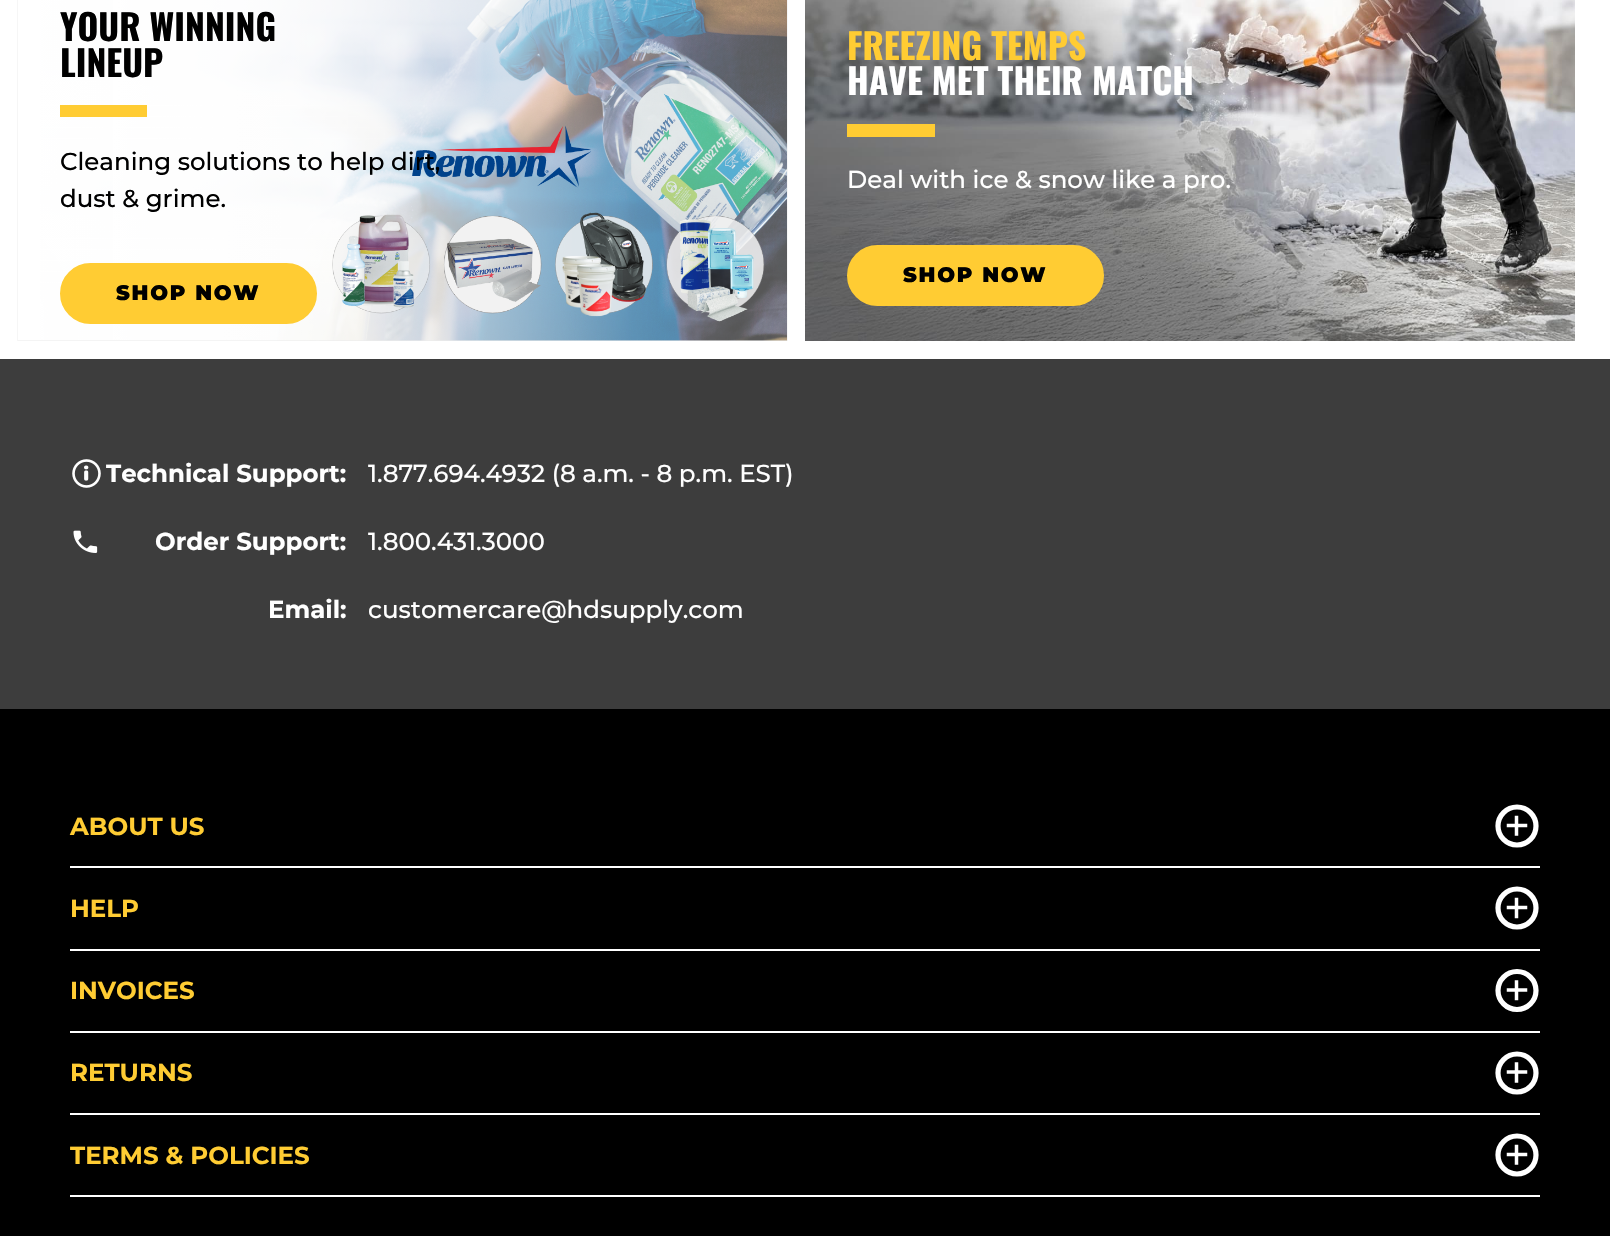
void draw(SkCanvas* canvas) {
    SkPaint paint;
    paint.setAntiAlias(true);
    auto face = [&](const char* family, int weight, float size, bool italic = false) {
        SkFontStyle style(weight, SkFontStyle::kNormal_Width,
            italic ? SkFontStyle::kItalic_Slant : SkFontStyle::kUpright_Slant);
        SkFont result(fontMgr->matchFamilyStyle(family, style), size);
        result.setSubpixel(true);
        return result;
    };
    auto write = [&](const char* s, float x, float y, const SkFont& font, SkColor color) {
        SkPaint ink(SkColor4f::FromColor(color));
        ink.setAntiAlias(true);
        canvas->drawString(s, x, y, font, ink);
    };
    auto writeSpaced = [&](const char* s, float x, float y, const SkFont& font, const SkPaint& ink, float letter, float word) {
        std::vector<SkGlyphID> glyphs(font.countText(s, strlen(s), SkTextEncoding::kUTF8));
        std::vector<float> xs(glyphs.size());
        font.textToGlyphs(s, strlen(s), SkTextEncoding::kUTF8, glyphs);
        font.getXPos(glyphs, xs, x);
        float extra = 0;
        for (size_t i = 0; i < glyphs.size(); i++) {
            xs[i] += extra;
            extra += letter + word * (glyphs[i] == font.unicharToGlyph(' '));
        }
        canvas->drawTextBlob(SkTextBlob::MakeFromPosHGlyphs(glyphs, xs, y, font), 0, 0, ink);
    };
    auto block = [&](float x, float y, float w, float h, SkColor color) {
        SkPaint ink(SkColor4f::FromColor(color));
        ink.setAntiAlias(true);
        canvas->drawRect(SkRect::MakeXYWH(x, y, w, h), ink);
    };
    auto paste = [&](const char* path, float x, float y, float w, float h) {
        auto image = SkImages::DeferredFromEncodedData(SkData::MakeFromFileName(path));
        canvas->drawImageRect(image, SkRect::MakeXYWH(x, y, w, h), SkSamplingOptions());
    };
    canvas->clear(SK_ColorWHITE);
    paste("pic1.png", 17, 0, 771, 341);
    auto kFont1 = face("Oswald", 700, 35.5f);
    write("YOUR WINNING", 60, 41, kFont1, SK_ColorBLACK);
    write("LINEUP", 60, 77, kFont1, SK_ColorBLACK);
    block(60, 105, 87, 12, SkColorSetRGB(255, 204, 51));
    auto kFont2 = face("Montserrat", 500, 24.5f);
    write("Cleaning solutions to help dirt,", 60, 170, kFont2, SK_ColorBLACK);
    write("dust & grime.", 60, 207, kFont2, SK_ColorBLACK);
    paint.setColor(SkColorSetRGB(255, 204, 51));
    canvas->drawRoundRect(SkRect::MakeXYWH(62, 265, 253, 57), 28.5f, 28.5f, paint);
    paint.setStyle(SkPaint::kStroke_Style);
    paint.setStrokeWidth(4);
    canvas->drawRoundRect(SkRect::MakeXYWH(62, 265, 253, 57), 28.5f, 28.5f, paint);
    auto kFont3 = face("Montserrat", 900, 21);
    paint.setStyle(SkPaint::kFill_Style);
    paint.setColor(SK_ColorBLACK);
    writeSpaced("SHOP NOW", 116, 300, kFont3, paint, 1.75f, 0);
    paste("pic2.png", 805, 0, 770, 341);
    write("FREEZING TEMPS", 847, 60, kFont1, SkColorSetRGB(255, 204, 51));
    write("HAVE MET THEIR MATCH", 847, 95, kFont1, SK_ColorWHITE);
    block(847, 124, 88, 13, SkColorSetRGB(255, 204, 51));
    write("Deal with ice & snow like a pro.", 847, 188, kFont2, SK_ColorWHITE);
    paint.setColor(SkColorSetRGB(255, 204, 51));
    canvas->drawRoundRect(SkRect::MakeXYWH(849, 247, 253, 57), 28.5f, 28.5f, paint);
    paint.setStyle(SkPaint::kStroke_Style);
    canvas->drawRoundRect(SkRect::MakeXYWH(849, 247, 253, 57), 28.5f, 28.5f, paint);
    paint.setStyle(SkPaint::kFill_Style);
    paint.setColor(SK_ColorBLACK);
    writeSpaced("SHOP NOW", 903, 282, kFont3, paint, 1.75f, 0);
    block(0, 709, 1610, 527, SK_ColorBLACK);
    block(0, 359, 1610, 350, SkColorSetRGB(61, 61, 61));
    paste("pic3.png", 72, 459, 29, 29);
    auto kFont4 = face("Montserrat", 700, 24.5f);
    write("Technical Support:", 106, 482, kFont4, SK_ColorWHITE);
    write("1.877.694.4932 (8 a.m. - 8 p.m. EST)", 368, 482, kFont2, SK_ColorWHITE);
    paste("pic4.png", 73, 530, 25, 23);
    write("Order Support:", 155, 550, kFont4, SK_ColorWHITE);
    write("1.800.431.3000", 368, 550, kFont2, SK_ColorWHITE);
    write("Email:", 268, 618, kFont4, SK_ColorWHITE);
    write("customercare@hdsupply.com", 368, 618, kFont2, SK_ColorWHITE);
    block(70, 866, 1470, 2, SK_ColorWHITE);
    write("ABOUT US", 70, 835, kFont4, SkColorSetRGB(255, 204, 51));
    paint.setStyle(SkPaint::kStroke_Style);
    paint.setStrokeWidth(5.2f);
    paint.setColor(SK_ColorWHITE);
    canvas->drawCircle(1517, 826, 19, paint);
    paint.setStrokeWidth(3.5f);
    paint.setStrokeCap(SkPaint::kSquare_Cap);
    canvas->drawPath(SkPathBuilder().moveTo(1508.5f, 825.5f).lineTo(1525.5f, 825.5f).moveTo(1516.5f, 834).lineTo(1516.5f, 817.5f).detach(), paint);
    block(70, 949, 1470, 2, SK_ColorWHITE);
    write("HELP", 70, 917, kFont4, SkColorSetRGB(255, 204, 51));
    paint.setStrokeWidth(5.2f);
    paint.setStrokeCap(SkPaint::kButt_Cap);
    canvas->drawCircle(1517, 908, 19, paint);
    paint.setStrokeWidth(3.5f);
    paint.setStrokeCap(SkPaint::kSquare_Cap);
    canvas->drawPath(SkPathBuilder().moveTo(1508.5f, 907.5f).lineTo(1525.5f, 907.5f).moveTo(1516.5f, 916.5f).lineTo(1516.5f, 899.5f).detach(), paint);
    block(70, 1031, 1470, 2, SK_ColorWHITE);
    write("INVOICES", 70, 999, kFont4, SkColorSetRGB(255, 204, 51));
    paint.setStrokeWidth(5.2f);
    paint.setStrokeCap(SkPaint::kButt_Cap);
    canvas->drawCircle(1517, 990.5f, 19, paint);
    paint.setStrokeWidth(3.5f);
    paint.setStrokeCap(SkPaint::kSquare_Cap);
    canvas->drawPath(SkPathBuilder().moveTo(1508.5f, 990).lineTo(1525.5f, 990).moveTo(1516.5f, 998.5f).lineTo(1516.5f, 982).detach(), paint);
    block(70, 1113, 1470, 2, SK_ColorWHITE);
    write("RETURNS", 70, 1081, kFont4, SkColorSetRGB(255, 204, 51));
    paint.setStrokeWidth(5.2f);
    paint.setStrokeCap(SkPaint::kButt_Cap);
    canvas->drawCircle(1517, 1073, 19, paint);
    paint.setStrokeWidth(3.5f);
    paint.setStrokeCap(SkPaint::kSquare_Cap);
    canvas->drawPath(SkPathBuilder().moveTo(1508.5f, 1072).lineTo(1525.5f, 1072).moveTo(1516.5f, 1081).lineTo(1516.5f, 1064).detach(), paint);
    block(70, 1195, 1470, 2, SK_ColorWHITE);
    write("TERMS & POLICIES", 70, 1164, kFont4, SkColorSetRGB(255, 204, 51));
    paint.setStrokeWidth(5.2f);
    paint.setStrokeCap(SkPaint::kButt_Cap);
    canvas->drawCircle(1517, 1155, 19, paint);
    paint.setStrokeWidth(3.5f);
    paint.setStrokeCap(SkPaint::kSquare_Cap);
    canvas->drawPath(SkPathBuilder().moveTo(1508.5f, 1154.5f).lineTo(1525.5f, 1154.5f).moveTo(1516.5f, 1163).lineTo(1516.5f, 1146.5f).detach(), paint);
}
